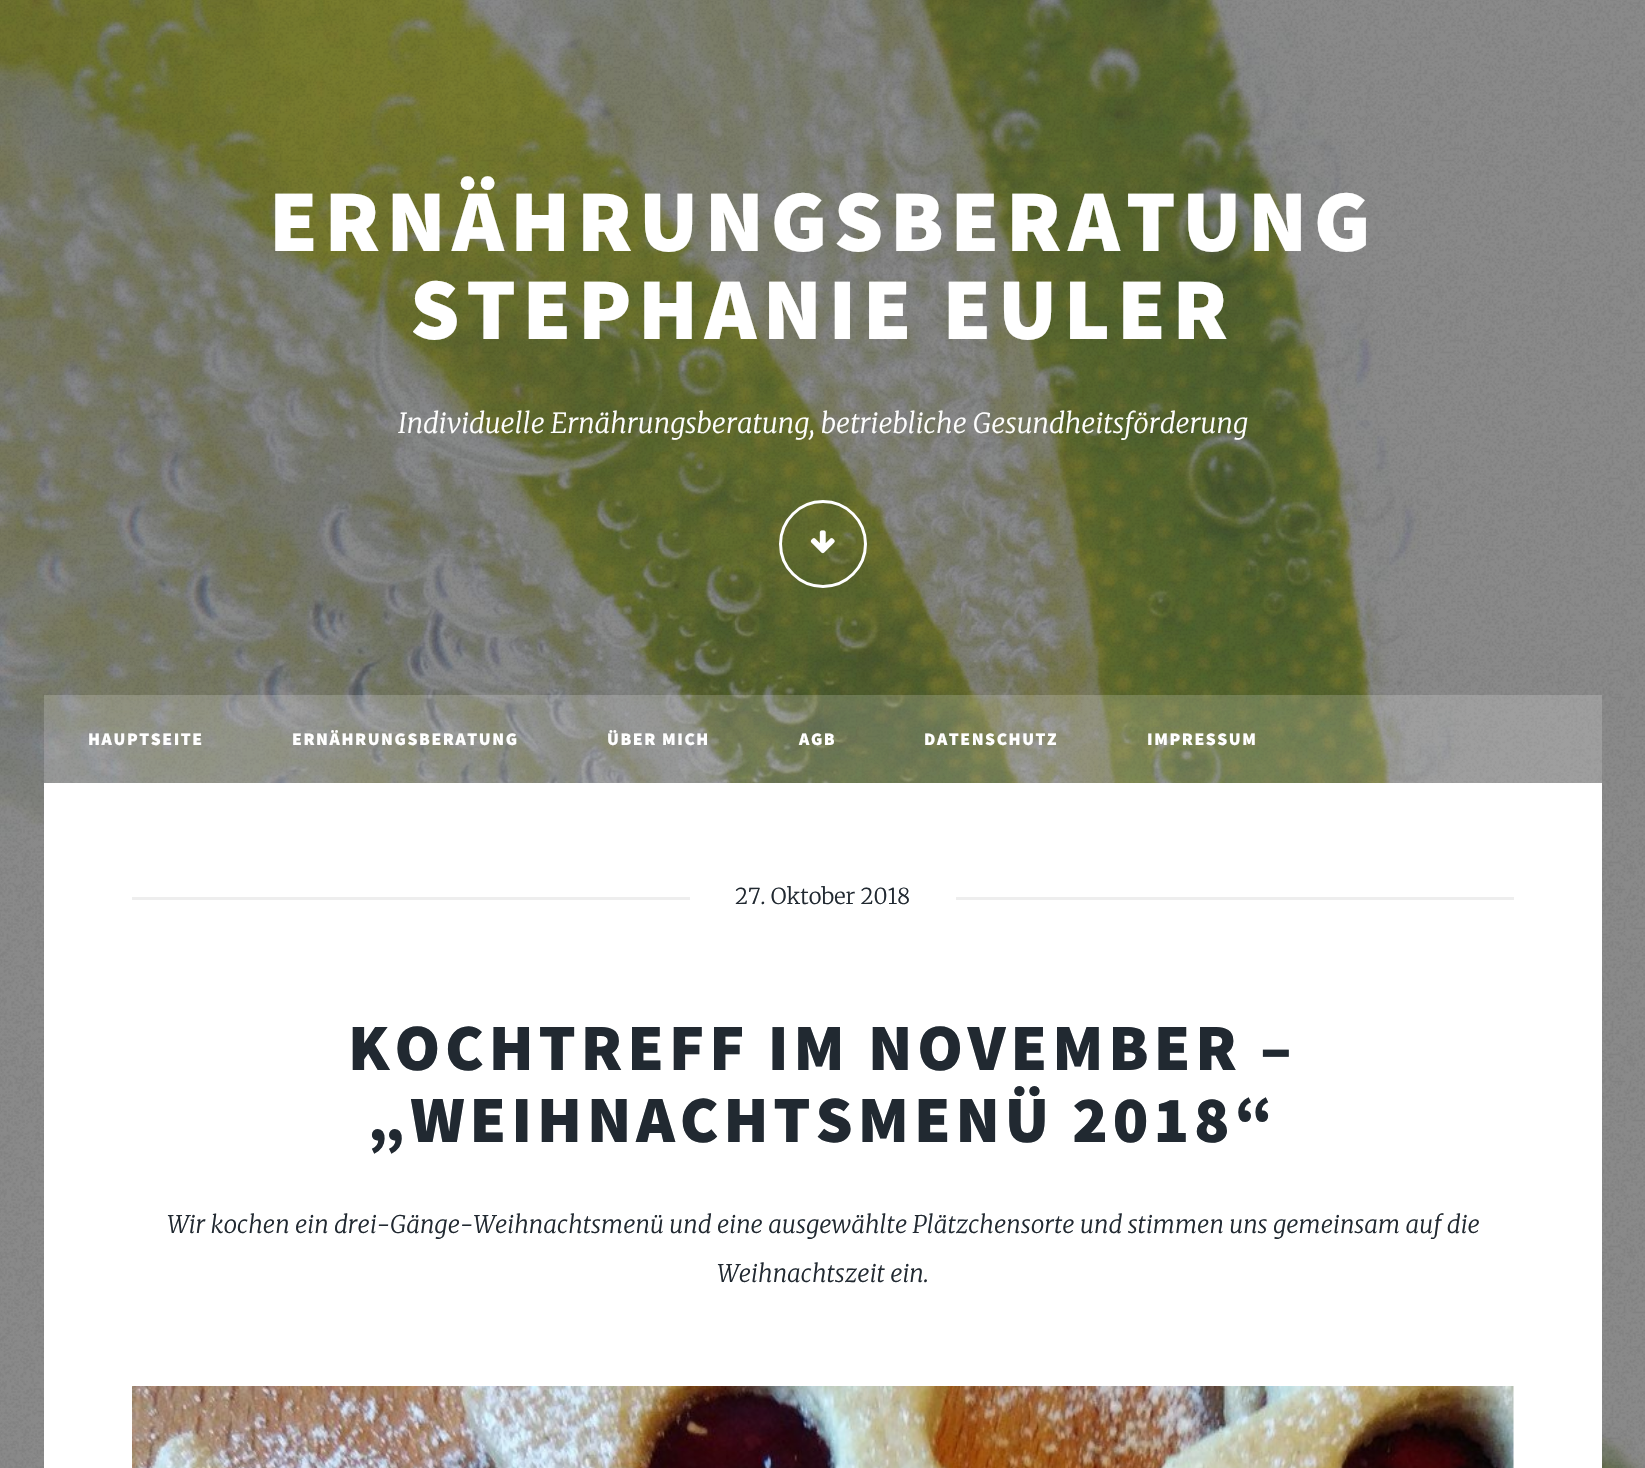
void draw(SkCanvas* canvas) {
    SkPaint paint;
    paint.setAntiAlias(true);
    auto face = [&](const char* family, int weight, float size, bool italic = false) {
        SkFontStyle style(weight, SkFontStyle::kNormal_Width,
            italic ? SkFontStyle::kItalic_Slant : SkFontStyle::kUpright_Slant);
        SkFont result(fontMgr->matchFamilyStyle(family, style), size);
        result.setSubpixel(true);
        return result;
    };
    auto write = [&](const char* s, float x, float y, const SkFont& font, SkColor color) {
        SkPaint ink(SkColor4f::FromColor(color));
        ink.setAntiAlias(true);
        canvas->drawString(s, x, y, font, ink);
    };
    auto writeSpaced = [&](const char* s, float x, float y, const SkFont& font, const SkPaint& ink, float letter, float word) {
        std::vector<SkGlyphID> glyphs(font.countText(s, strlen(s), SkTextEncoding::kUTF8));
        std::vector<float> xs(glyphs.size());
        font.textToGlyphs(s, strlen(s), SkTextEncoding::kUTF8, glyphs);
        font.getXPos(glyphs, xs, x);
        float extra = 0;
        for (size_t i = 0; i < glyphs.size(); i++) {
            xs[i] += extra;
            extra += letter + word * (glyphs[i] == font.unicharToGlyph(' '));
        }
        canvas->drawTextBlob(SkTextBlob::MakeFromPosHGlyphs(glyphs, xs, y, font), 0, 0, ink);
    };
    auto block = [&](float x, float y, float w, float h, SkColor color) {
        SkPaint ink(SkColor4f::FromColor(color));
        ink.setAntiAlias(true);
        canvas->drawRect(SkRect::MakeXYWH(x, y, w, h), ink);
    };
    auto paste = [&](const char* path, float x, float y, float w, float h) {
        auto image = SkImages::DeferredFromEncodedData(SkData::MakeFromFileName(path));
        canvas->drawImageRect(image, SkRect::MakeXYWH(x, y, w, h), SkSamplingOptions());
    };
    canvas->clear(SK_ColorWHITE);
    paste("pic1.png", 0, 0, 1645, 1468);
    auto kFont1 = face("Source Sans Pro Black", 900, 88);
    paint.setColor(SK_ColorWHITE);
    writeSpaced("ERNÄHRUNGSBERATUNG", 269, 251, kFont1, paint, 6.6f, 0);
    writeSpaced("STEPHANIE EULER", 410, 339, kFont1, paint, 6.6f, 0);
    auto kFont2 = face("Merriweather", 300, 27.5f, true);
    write("Individuelle Ernährungsberatung, betriebliche Gesundheitsförderung", 398, 433, kFont2, SK_ColorWHITE);
    paint.setStyle(SkPaint::kStroke_Style);
    paint.setStrokeWidth(3);
    canvas->drawCircle(823, 544, 42.5f, paint);
    paste("pic2.png", 810, 530, 25, 24);
    block(44, 695, 1558, 88, SkColorSetARGB(46, 255, 255, 255));
    auto kFont3 = face("Source Sans Pro Black", 900, 17.6f);
    paint.setStyle(SkPaint::kFill_Style);
    writeSpaced("HAUPTSEITE", 88, 745, kFont3, paint, 1.6f, 0);
    writeSpaced("ERNÄHRUNGSBERATUNG", 292, 745, kFont3, paint, 1.6f, 0);
    writeSpaced("ÜBER MICH", 607, 745, kFont3, paint, 1.6f, 0);
    writeSpaced("AGB", 799, 745, kFont3, paint, 1.6f, 0);
    writeSpaced("DATENSCHUTZ", 924, 745, kFont3, paint, 1.6f, 0);
    writeSpaced("IMPRESSUM", 1147, 745, kFont3, paint, 1.6f, 0);
    block(44, 783, 1558, 685, SK_ColorWHITE);
    block(132, 897, 558, 3, SkColorSetRGB(238, 238, 238));
    auto kFont4 = face("Merriweather", 300, 22);
    write("27. Oktober 2018", 735, 904, kFont4, SkColorSetRGB(33, 41, 49));
    block(956, 897, 558, 3, SkColorSetRGB(238, 238, 238));
    auto kFont5 = face("Source Sans Pro Black", 900, 66);
    paint.setColor(SkColorSetRGB(33, 41, 49));
    writeSpaced("KOCHTREFF IM NOVEMBER –", 348, 1070, kFont5, paint, 4.95f, 0);
    writeSpaced("„WEIHNACHTSMENÜ 2018“", 367, 1142, kFont5, paint, 4.95f, 0);
    auto kFont6 = face("Merriweather", 300, 24.2f, true);
    write("Wir kochen ein drei-Gänge-Weihnachtsmenü und eine ausgewählte Plätzchensorte und stimmen uns gemeinsam auf die", 167, 1233, kFont6, SkColorSetRGB(33, 41, 49));
    write("Weihnachtszeit ein.", 717, 1282, kFont6, SkColorSetRGB(33, 41, 49));
    paste("pic3.png", 132, 1386, 1382, 82);
}
